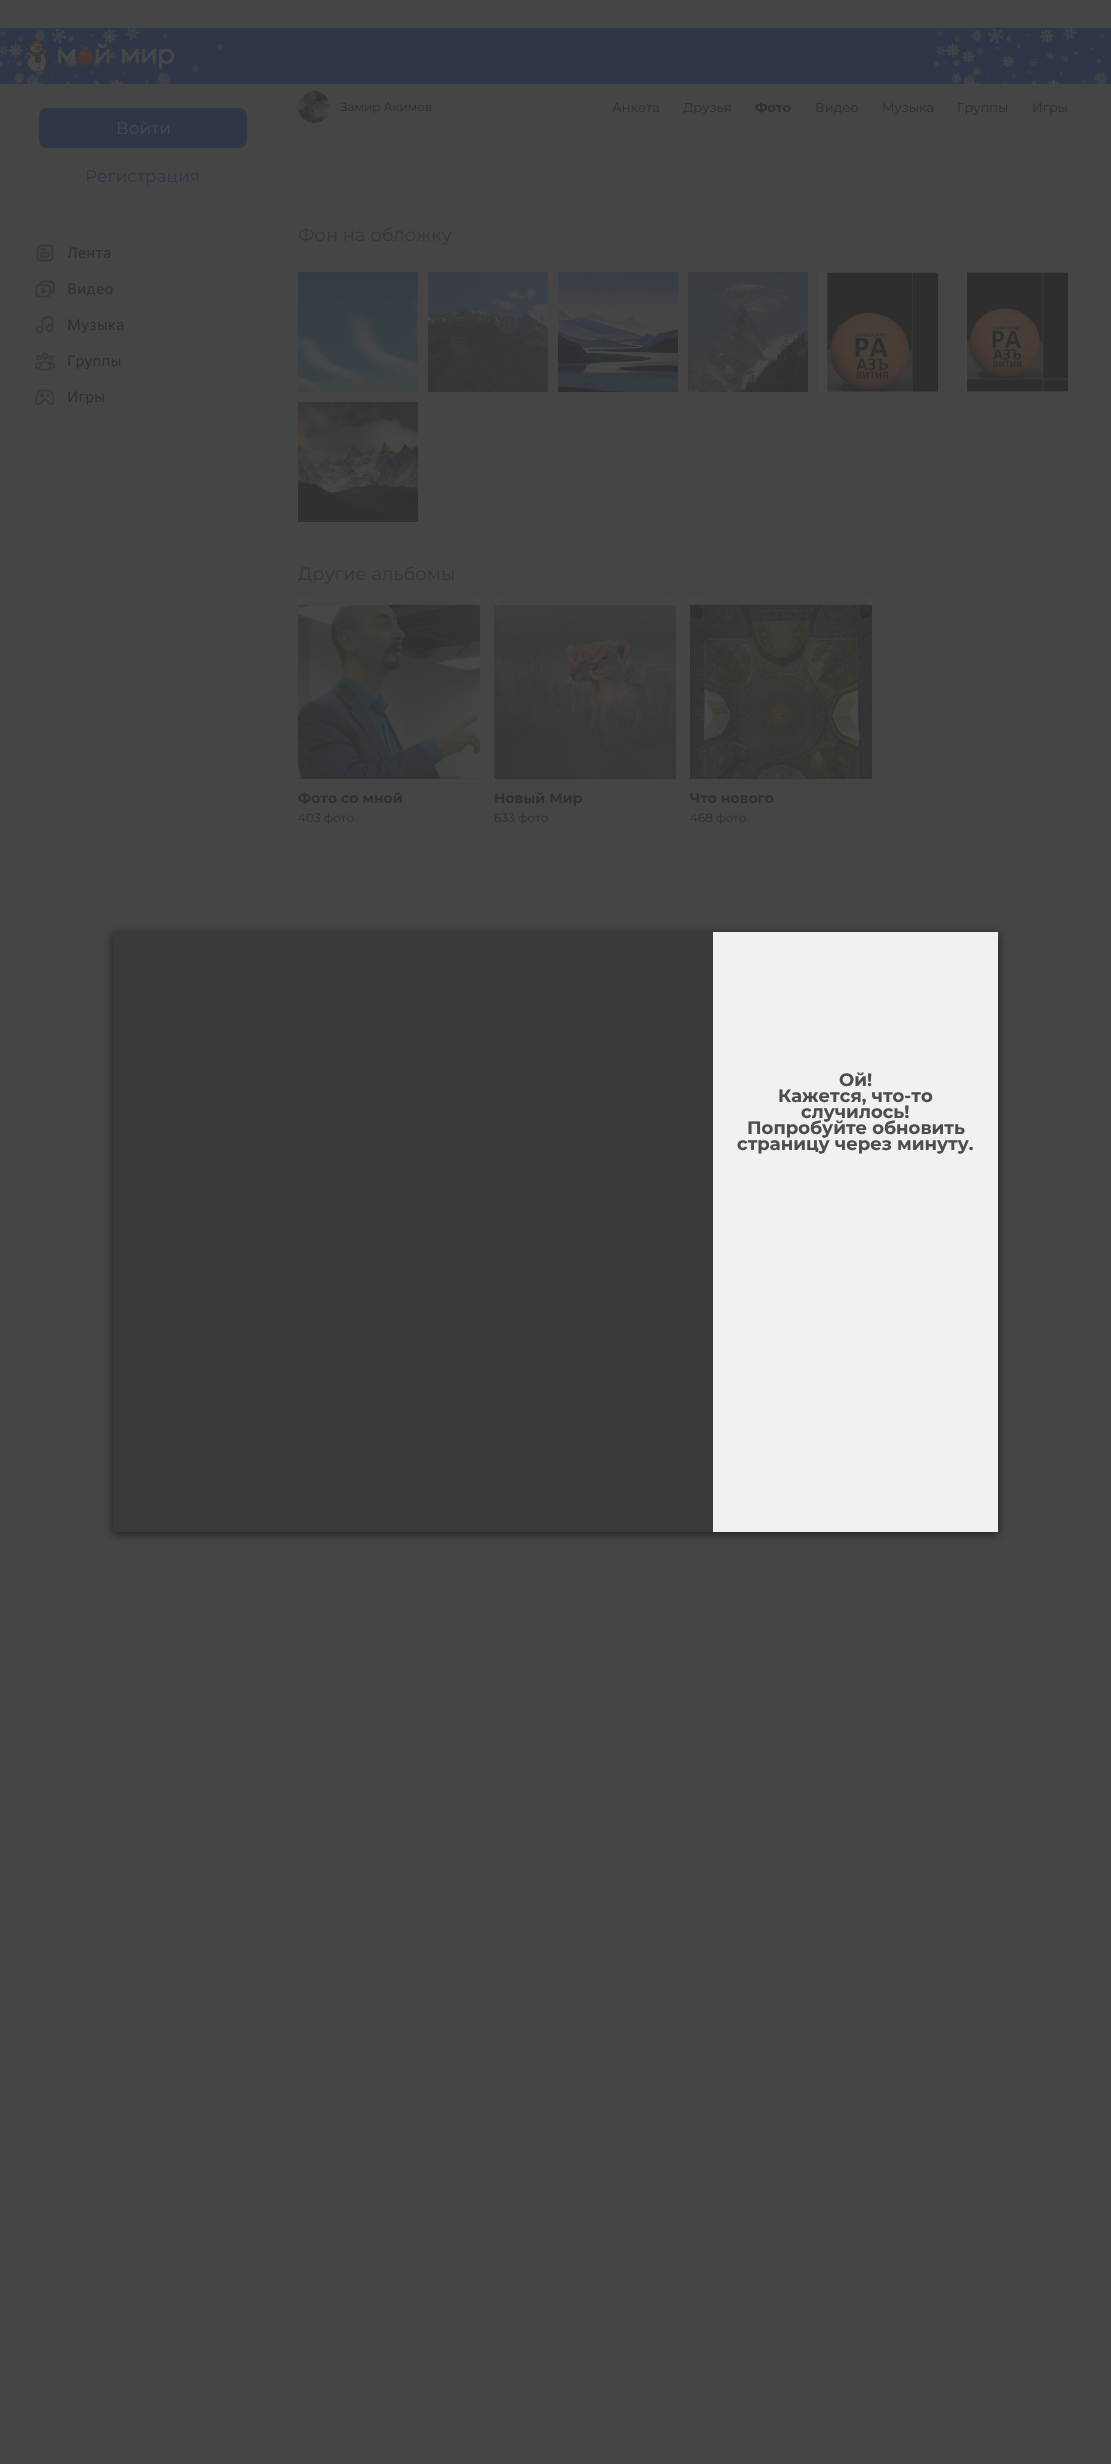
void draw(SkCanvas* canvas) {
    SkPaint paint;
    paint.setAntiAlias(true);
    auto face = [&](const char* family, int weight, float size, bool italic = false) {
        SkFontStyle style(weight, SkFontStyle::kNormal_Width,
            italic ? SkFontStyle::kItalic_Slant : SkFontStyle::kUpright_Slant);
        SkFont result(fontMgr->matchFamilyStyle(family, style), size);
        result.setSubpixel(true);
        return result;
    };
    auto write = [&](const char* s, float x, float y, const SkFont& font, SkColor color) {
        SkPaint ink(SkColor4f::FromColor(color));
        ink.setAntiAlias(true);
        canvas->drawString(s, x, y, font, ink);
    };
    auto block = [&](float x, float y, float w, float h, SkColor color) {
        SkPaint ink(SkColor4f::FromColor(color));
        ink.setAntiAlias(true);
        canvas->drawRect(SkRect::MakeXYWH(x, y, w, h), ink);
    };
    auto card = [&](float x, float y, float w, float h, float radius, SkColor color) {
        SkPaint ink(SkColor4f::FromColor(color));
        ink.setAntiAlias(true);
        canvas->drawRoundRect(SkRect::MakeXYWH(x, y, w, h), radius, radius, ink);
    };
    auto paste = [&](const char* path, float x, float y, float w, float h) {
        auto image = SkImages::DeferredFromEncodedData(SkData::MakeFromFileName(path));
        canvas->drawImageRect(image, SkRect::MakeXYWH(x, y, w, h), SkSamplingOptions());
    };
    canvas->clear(SkColorSetRGB(69, 69, 70));
    block(0, 28, 1111, 56, SkColorSetRGB(46, 55, 71));
    paste("pic1.png", 0, 28, 223, 56);
    paste("pic2.png", 934, 28, 174, 56);
    paste("pic3.png", 23, 40, 152, 32);
    card(39, 108, 208, 40, 8, SkColorSetRGB(46, 55, 71));
    auto kFont1 = face("Montserrat", 400, 17);
    write("Войти", 116, 134, kFont1, SkColorSetRGB(71, 71, 71));
    write("Регистрация", 85, 182, kFont1, SkColorSetRGB(46, 55, 71));
    paste("pic4.png", 36, 244, 18, 18);
    auto kFont2 = face("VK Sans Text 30", 400, 15);
    write("Лента", 67, 258, kFont2, SkColorSetRGB(48, 48, 48));
    paste("pic5.png", 35, 280, 20, 18);
    write("Видео", 67, 294, kFont2, SkColorSetRGB(48, 48, 48));
    paste("pic6.png", 35, 316, 19, 18);
    write("Музыка", 67, 330, kFont2, SkColorSetRGB(48, 48, 48));
    paste("pic7.png", 35, 352, 20, 19);
    write("Группы", 67, 366, kFont2, SkColorSetRGB(48, 48, 48));
    paste("pic8.png", 35, 389, 20, 17);
    write("Игры", 67, 402, kFont2, SkColorSetRGB(48, 48, 48));
    paste("pic9.png", 298, 91, 32, 32);
    auto kFont3 = face("Montserrat", 400, 12);
    write("Замир Акимов", 340, 111, kFont3, SkColorSetRGB(48, 48, 48));
    auto kFont4 = face("Montserrat", 400, 13);
    write("Анкета", 612, 112, kFont4, SkColorSetRGB(48, 48, 48));
    write("Друзья", 683, 112, kFont4, SkColorSetRGB(48, 48, 48));
    auto kFont5 = face("Montserrat", 700, 13);
    write("Фото", 755, 112, kFont5, SkColorSetRGB(48, 48, 48));
    write("Видео", 815, 112, kFont4, SkColorSetRGB(48, 48, 48));
    write("Музыка", 882, 112, kFont4, SkColorSetRGB(48, 48, 48));
    write("Группы", 957, 112, kFont4, SkColorSetRGB(48, 48, 48));
    write("Игры", 1032, 112, kFont4, SkColorSetRGB(48, 48, 48));
    auto kFont6 = face("Montserrat", 400, 18);
    write("Фон на обложку", 298, 241, kFont6, SkColorSetRGB(54, 54, 54));
    paste("pic10.png", 298, 272, 120, 120);
    paste("pic11.png", 428, 272, 120, 120);
    paste("pic12.png", 558, 272, 120, 120);
    paste("pic13.png", 688, 272, 120, 120);
    paste("pic14.png", 818, 272, 120, 120);
    paste("pic15.png", 964, 272, 104, 120);
    paste("pic16.png", 298, 402, 120, 120);
    paint.setStyle(SkPaint::kStroke_Style);
    paint.setStrokeWidth(1);
    paint.setColor(SkColorSetRGB(66, 66, 66));
    paint.setPathEffect(SkDashPathEffect::Make({{3, 2.01f}}, 0));
    canvas->drawPath(SkPathBuilder().moveTo(298, 547.5f).lineTo(1073, 547.5f).detach(), paint);
    paint.setPathEffect(nullptr);
    write("Другие альбомы", 298, 580, kFont6, SkColorSetRGB(54, 54, 54));
    paste("pic17.png", 298, 605, 182, 174);
    paste("pic18.png", 298, 597, 182, 8);
    block(298, 783, 182, 1, SkColorSetRGB(66, 66, 66));
    auto kFont7 = face("Montserrat", 700, 14);
    write("Фото со мной", 298, 803, kFont7, SkColorSetRGB(48, 48, 48));
    write("403 фото", 298, 822, kFont3, SkColorSetRGB(48, 48, 48));
    paste("pic19.png", 494, 605, 182, 174);
    paste("pic18.png", 494, 597, 182, 8);
    block(494, 783, 182, 1, SkColorSetRGB(66, 66, 66));
    write("Новый Мир", 494, 803, kFont7, SkColorSetRGB(48, 48, 48));
    write("633 фото", 494, 822, kFont3, SkColorSetRGB(48, 48, 48));
    paste("pic20.png", 690, 605, 182, 174);
    paste("pic18.png", 690, 597, 182, 8);
    block(690, 783, 182, 1, SkColorSetRGB(66, 66, 66));
    write("Что нового", 690, 803, kFont7, SkColorSetRGB(48, 48, 48));
    write("468 фото", 690, 822, kFont3, SkColorSetRGB(48, 48, 48));
    paint.setStyle(SkPaint::kFill_Style);
    paint.setColor(SkColorSetRGB(26, 31, 36));
    paint.setMaskFilter(SkMaskFilter::MakeBlur(kNormal_SkBlurStyle, 5));
    canvas->drawRect(SkRect::MakeXYWH(113, 934, 885, 600), paint);
    paint.setMaskFilter(nullptr);
    block(713, 932, 285, 600, SkColorSetRGB(240, 241, 242));
    block(113, 932, 600, 600, SkColorSetRGB(58, 58, 58));
    auto kFont8 = face("Montserrat", 700, 18);
    write("Ой!", 839, 1086, kFont8, SkColorSetRGB(77, 77, 77));
    write("Кажется, что-то", 778, 1102, kFont8, SkColorSetRGB(77, 77, 77));
    write("случилось!", 801, 1118, kFont8, SkColorSetRGB(77, 77, 77));
    write("Попробуйте обновить", 747, 1134, kFont8, SkColorSetRGB(77, 77, 77));
    write("страницу через минуту.", 737, 1150, kFont8, SkColorSetRGB(77, 77, 77));
}
